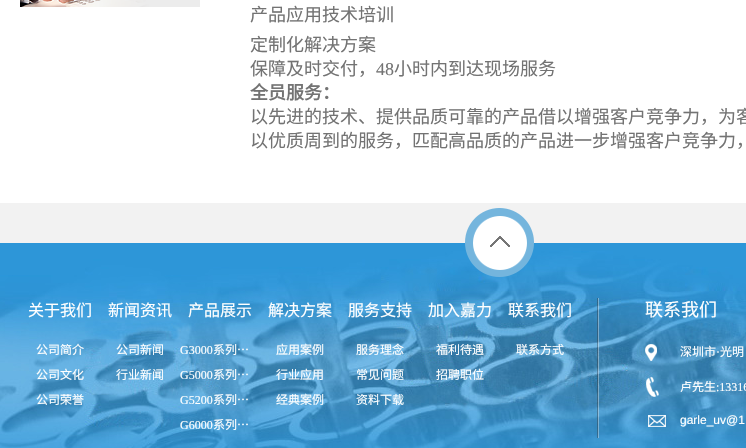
void draw(SkCanvas* canvas) {
    SkPaint paint;
    paint.setAntiAlias(true);
    auto face = [&](const char* family, int weight, float size, bool italic = false) {
        SkFontStyle style(weight, SkFontStyle::kNormal_Width,
            italic ? SkFontStyle::kItalic_Slant : SkFontStyle::kUpright_Slant);
        SkFont result(fontMgr->matchFamilyStyle(family, style), size);
        result.setSubpixel(true);
        return result;
    };
    auto write = [&](const char* s, float x, float y, const SkFont& font, SkColor color) {
        SkPaint ink(SkColor4f::FromColor(color));
        ink.setAntiAlias(true);
        canvas->drawString(s, x, y, font, ink);
    };
    auto block = [&](float x, float y, float w, float h, SkColor color) {
        SkPaint ink(SkColor4f::FromColor(color));
        ink.setAntiAlias(true);
        canvas->drawRect(SkRect::MakeXYWH(x, y, w, h), ink);
    };
    auto paste = [&](const char* path, float x, float y, float w, float h) {
        auto image = SkImages::DeferredFromEncodedData(SkData::MakeFromFileName(path));
        canvas->drawImageRect(image, SkRect::MakeXYWH(x, y, w, h), SkSamplingOptions());
    };
    canvas->clear(SkColorSetRGB(242, 242, 242));
    block(0, 0, 746, 203, SK_ColorWHITE);
    paste("pic1.png", 20, 0, 180, 7);
    auto kFont1 = face("Noto Sans CJK SC", 400, 18);
    write("产品应用技术培训", 250, 21, kFont1, SkColorSetRGB(115, 115, 115));
    write("定制化解决方案", 250, 51, kFont1, SkColorSetRGB(115, 115, 115));
    write("保障及时交付，", 250, 75, kFont1, SkColorSetRGB(115, 115, 115));
    auto kFont2 = face("Liberation Serif", 400, 18);
    write("48", 376, 75, kFont2, SkColorSetRGB(115, 115, 115));
    write("小时内到达现场服务", 394, 75, kFont1, SkColorSetRGB(115, 115, 115));
    auto kFont3 = face("Noto Sans CJK SC", 700, 18);
    write("全员服务：", 250, 99, kFont3, SkColorSetRGB(115, 115, 115));
    write("以先进的技术、提供品质可靠的产品借以增强客户竞争力，为客", 250, 123, kFont1, SkColorSetRGB(115, 115, 115));
    write("以优质周到的服务，匹配高品质的产品进一步增强客户竞争力，", 250, 147, kFont1, SkColorSetRGB(115, 115, 115));
    paste("pic2.png", 0, 243, 746, 205);
    paste("pic3.png", 465, 208, 69, 69);
    paste("pic4.png", 597, 298, 2, 140);
    auto kFont4 = face("Noto Sans CJK SC", 400, 16);
    write("关于我们", 28, 316, kFont4, SK_ColorWHITE);
    auto kFont5 = face("Noto Sans CJK SC", 400, 12);
    write("公司简介", 36, 354, kFont5, SK_ColorWHITE);
    write("公司文化", 36, 379, kFont5, SK_ColorWHITE);
    write("公司荣誉", 36, 404, kFont5, SK_ColorWHITE);
    write("新闻资讯", 108, 316, kFont4, SK_ColorWHITE);
    write("公司新闻", 116, 354, kFont5, SK_ColorWHITE);
    write("行业新闻", 116, 379, kFont5, SK_ColorWHITE);
    write("产品展示", 188, 316, kFont4, SK_ColorWHITE);
    auto kFont6 = face("Liberation Serif", 400, 12);
    write("G3000", 180, 354, kFont6, SK_ColorWHITE);
    write("系列…", 213, 354, kFont5, SK_ColorWHITE);
    write("G5000", 180, 379, kFont6, SK_ColorWHITE);
    write("系列…", 213, 379, kFont5, SK_ColorWHITE);
    write("G5200", 180, 404, kFont6, SK_ColorWHITE);
    write("系列…", 213, 404, kFont5, SK_ColorWHITE);
    write("G6000", 180, 429, kFont6, SK_ColorWHITE);
    write("系列…", 213, 429, kFont5, SK_ColorWHITE);
    write("解决方案", 268, 316, kFont4, SK_ColorWHITE);
    write("应用案例", 276, 354, kFont5, SK_ColorWHITE);
    write("行业应用", 276, 379, kFont5, SK_ColorWHITE);
    write("经典案例", 276, 404, kFont5, SK_ColorWHITE);
    write("服务支持", 348, 316, kFont4, SK_ColorWHITE);
    write("服务理念", 356, 354, kFont5, SK_ColorWHITE);
    write("常见问题", 356, 379, kFont5, SK_ColorWHITE);
    write("资料下载", 356, 404, kFont5, SK_ColorWHITE);
    write("加入嘉力", 428, 316, kFont4, SK_ColorWHITE);
    write("福利待遇", 436, 354, kFont5, SK_ColorWHITE);
    write("招聘职位", 436, 379, kFont5, SK_ColorWHITE);
    write("联系我们", 508, 316, kFont4, SK_ColorWHITE);
    write("联系方式", 516, 354, kFont5, SK_ColorWHITE);
    write("联系我们", 645, 316, kFont1, SK_ColorWHITE);
    paste("pic5.png", 645, 344, 12, 17);
    write("深圳市", 680, 356, kFont5, SK_ColorWHITE);
    write("·", 716, 356, kFont6, SK_ColorWHITE);
    write("光明", 720, 356, kFont5, SK_ColorWHITE);
    paste("pic6.png", 646, 377, 13, 20);
    write("卢先生", 680, 391, kFont5, SK_ColorWHITE);
    write(":13316", 716, 391, kFont6, SK_ColorWHITE);
    paste("pic7.png", 648, 415, 18, 12);
    auto kFont7 = face("Liberation Sans", 400, 12);
    write("garle_uv@1", 680, 424, kFont7, SK_ColorWHITE);
}
